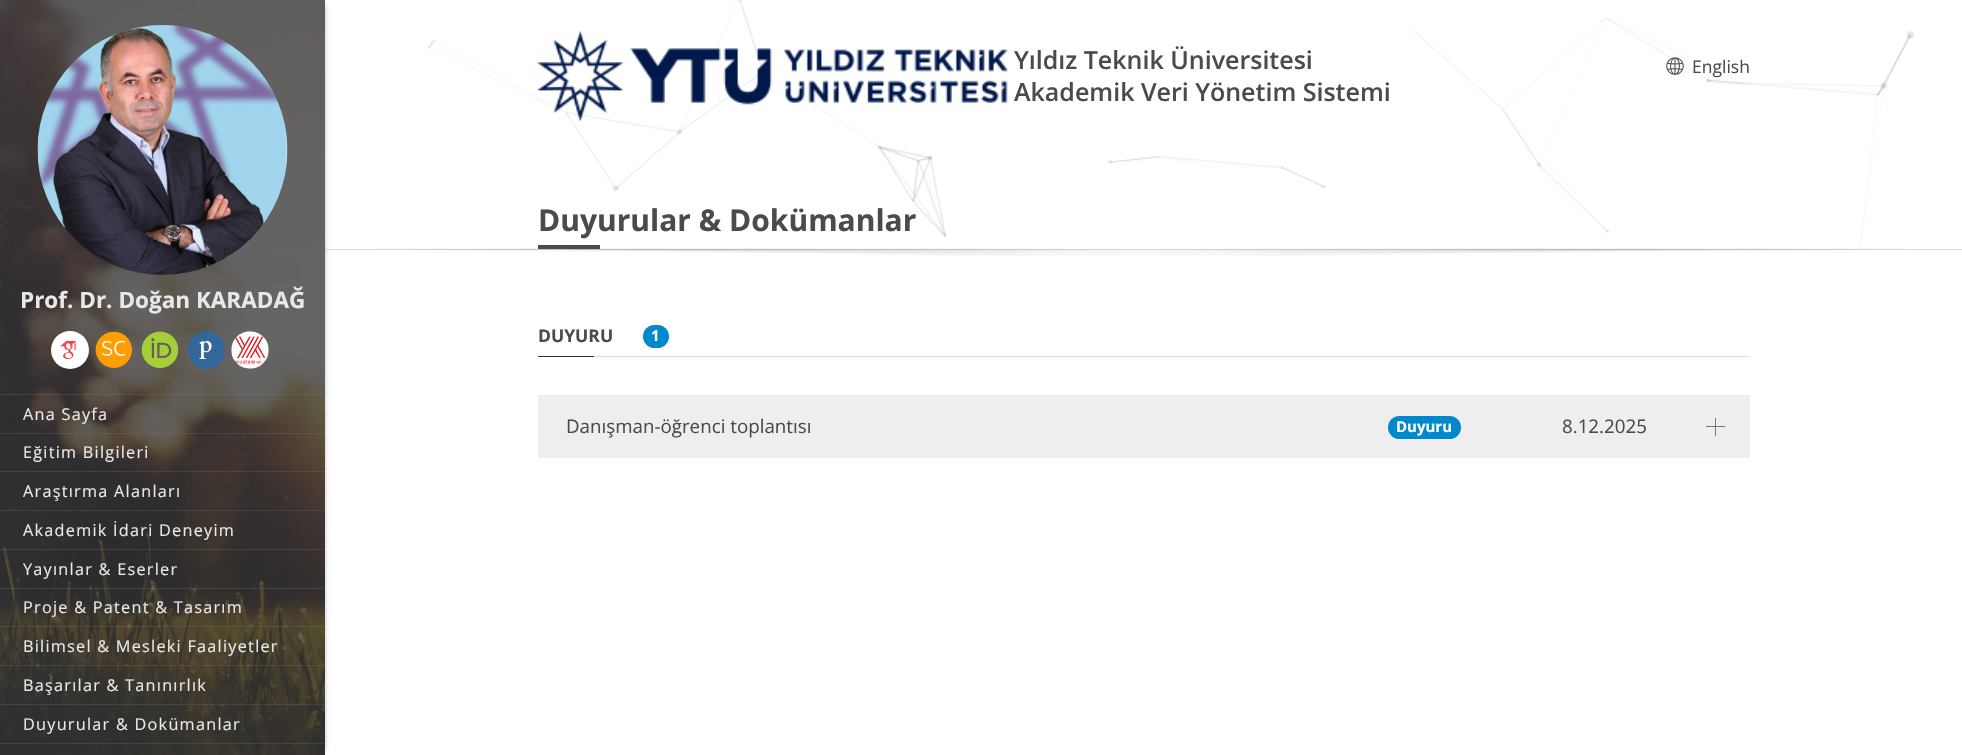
void draw(SkCanvas* canvas) {
    SkPaint paint;
    paint.setAntiAlias(true);
    auto face = [&](const char* family, int weight, float size, bool italic = false) {
        SkFontStyle style(weight, SkFontStyle::kNormal_Width,
            italic ? SkFontStyle::kItalic_Slant : SkFontStyle::kUpright_Slant);
        SkFont result(fontMgr->matchFamilyStyle(family, style), size);
        result.setSubpixel(true);
        return result;
    };
    auto write = [&](const char* s, float x, float y, const SkFont& font, SkColor color) {
        SkPaint ink(SkColor4f::FromColor(color));
        ink.setAntiAlias(true);
        canvas->drawString(s, x, y, font, ink);
    };
    auto writeSpaced = [&](const char* s, float x, float y, const SkFont& font, const SkPaint& ink, float letter, float word) {
        std::vector<SkGlyphID> glyphs(font.countText(s, strlen(s), SkTextEncoding::kUTF8));
        std::vector<float> xs(glyphs.size());
        font.textToGlyphs(s, strlen(s), SkTextEncoding::kUTF8, glyphs);
        font.getXPos(glyphs, xs, x);
        float extra = 0;
        for (size_t i = 0; i < glyphs.size(); i++) {
            xs[i] += extra;
            extra += letter + word * (glyphs[i] == font.unicharToGlyph(' '));
        }
        canvas->drawTextBlob(SkTextBlob::MakeFromPosHGlyphs(glyphs, xs, y, font), 0, 0, ink);
    };
    auto block = [&](float x, float y, float w, float h, SkColor color) {
        SkPaint ink(SkColor4f::FromColor(color));
        ink.setAntiAlias(true);
        canvas->drawRect(SkRect::MakeXYWH(x, y, w, h), ink);
    };
    auto card = [&](float x, float y, float w, float h, float radius, SkColor color) {
        SkPaint ink(SkColor4f::FromColor(color));
        ink.setAntiAlias(true);
        canvas->drawRoundRect(SkRect::MakeXYWH(x, y, w, h), radius, radius, ink);
    };
    auto paste = [&](const char* path, float x, float y, float w, float h) {
        auto image = SkImages::DeferredFromEncodedData(SkData::MakeFromFileName(path));
        canvas->drawImageRect(image, SkRect::MakeXYWH(x, y, w, h), SkSamplingOptions());
    };
    canvas->clear(SK_ColorWHITE);
    block(325, 249, 1637, 1, SkColorSetRGB(222, 222, 222));
    paste("pic1.png", 428, 0, 1486, 249);
    paste("pic2.png", 537, 31, 471, 91);
    auto kFont1 = face("Open Sans", 600, 25);
    write("Yıldız Teknik Üniversitesi", 1014, 69, kFont1, SkColorSetRGB(75, 75, 75));
    write("Akademik Veri Yönetim Sistemi", 1014, 101, kFont1, SkColorSetRGB(75, 75, 75));
    paste("pic3.png", 1666, 57, 18, 18);
    auto kFont2 = face("Open Sans", 400, 17.5f);
    write("English", 1692, 73, kFont2, SkColorSetRGB(75, 75, 75));
    auto kFont3 = face("Open Sans", 700, 30);
    write("Duyurular & Dokümanlar", 538, 231, kFont3, SkColorSetRGB(75, 75, 75));
    paste("pic4.png", 377, 248, 1528, 8);
    block(538, 245, 62, 4, SkColorSetRGB(75, 75, 75));
    paint.setColor(SkColorSetARGB(128, 0, 0, 0));
    paint.setMaskFilter(SkMaskFilter::MakeBlur(kNormal_SkBlurStyle, 3));
    canvas->drawRect(SkRect::MakeXYWH(8, 5, 315, 745), paint);
    paint.setMaskFilter(nullptr);
    paste("pic5.png", 0, 0, 325, 755);
    paste("pic6.png", 37, 25, 251, 250);
    auto kFont4 = face("Open Sans", 700, 22.5f);
    write("Prof. Dr. Doğan KARADAĞ", 20, 308, kFont4, SkColorSetRGB(232, 232, 232));
    paint.setColor(SK_ColorWHITE);
    canvas->drawCircle(70, 350, 19, paint);
    paste("pic7.png", 60, 341, 17, 18);
    paste("pic8.png", 95, 331, 38, 37);
    paste("pic9.png", 141, 331, 38, 37);
    card(188, 331, 37, 38, 18.5f, SkColorSetRGB(51, 102, 153));
    paste("pic10.png", 199, 341, 13, 18);
    paste("pic11.png", 231, 331, 38, 38);
    block(0, 394, 325, 1, SkColorSetARGB(46, 146, 146, 146));
    block(0, 433, 325, 1, SkColorSetARGB(46, 146, 146, 146));
    auto kFont5 = face("Open Sans", 400, 16.25f);
    paint.setColor(SkColorSetRGB(232, 232, 232));
    writeSpaced("Ana Sayfa", 23, 420, kFont5, paint, 1.25f, 0);
    block(0, 471, 325, 1, SkColorSetARGB(46, 146, 146, 146));
    writeSpaced("Eğitim Bilgileri", 23, 458, kFont5, paint, 1.25f, 0);
    block(0, 510, 325, 1, SkColorSetARGB(46, 146, 146, 146));
    writeSpaced("Araştırma Alanları", 23, 497, kFont5, paint, 1.25f, 0);
    block(0, 549, 325, 1, SkColorSetARGB(46, 146, 146, 146));
    writeSpaced("Akademik İdari Deneyim", 23, 536, kFont5, paint, 1.25f, 0);
    block(0, 588, 325, 1, SkColorSetARGB(46, 146, 146, 146));
    writeSpaced("Yayınlar & Eserler", 23, 575, kFont5, paint, 1.25f, 0);
    block(0, 626, 325, 1, SkColorSetARGB(46, 146, 146, 146));
    writeSpaced("Proje & Patent & Tasarım", 23, 613, kFont5, paint, 1.25f, 0);
    block(0, 665, 325, 1, SkColorSetARGB(46, 146, 146, 146));
    writeSpaced("Bilimsel & Mesleki Faaliyetler", 23, 652, kFont5, paint, 1.25f, 0);
    block(0, 704, 325, 1, SkColorSetARGB(46, 146, 146, 146));
    writeSpaced("Başarılar & Tanınırlık", 23, 691, kFont5, paint, 1.25f, 0);
    block(0, 743, 325, 1, SkColorSetARGB(46, 146, 146, 146));
    writeSpaced("Duyurular & Dokümanlar", 23, 730, kFont5, paint, 1.25f, 0);
    block(594, 356, 1156, 1, SkColorSetRGB(222, 222, 222));
    auto kFont6 = face("Open Sans", 700, 17.5f);
    write("DUYURU", 538, 342, kFont6, SkColorSetRGB(75, 75, 75));
    card(643, 325, 26, 23, 11.5f, SkColorSetRGB(0, 136, 204));
    auto kFont7 = face("Open Sans", 700, 15);
    write("1", 651, 341, kFont7, SK_ColorWHITE);
    block(538, 356, 56, 1, SkColorSetRGB(51, 51, 51));
    block(538, 395, 1212, 63, SkColorSetRGB(238, 238, 238));
    auto kFont8 = face("Open Sans", 400, 18.75f);
    write("Danışman-öğrenci toplantısı", 566, 433, kFont8, SkColorSetRGB(75, 75, 75));
    card(1388, 416, 73, 23, 11.5f, SkColorSetRGB(0, 136, 204));
    write("Duyuru", 1396, 432, kFont7, SK_ColorWHITE);
    write("8.12.2025", 1562, 433, kFont8, SkColorSetRGB(75, 75, 75));
    block(1706, 426, 19, 1, SkColorSetRGB(119, 119, 119));
    block(1715, 418, 1, 18, SkColorSetRGB(119, 119, 119));
}
